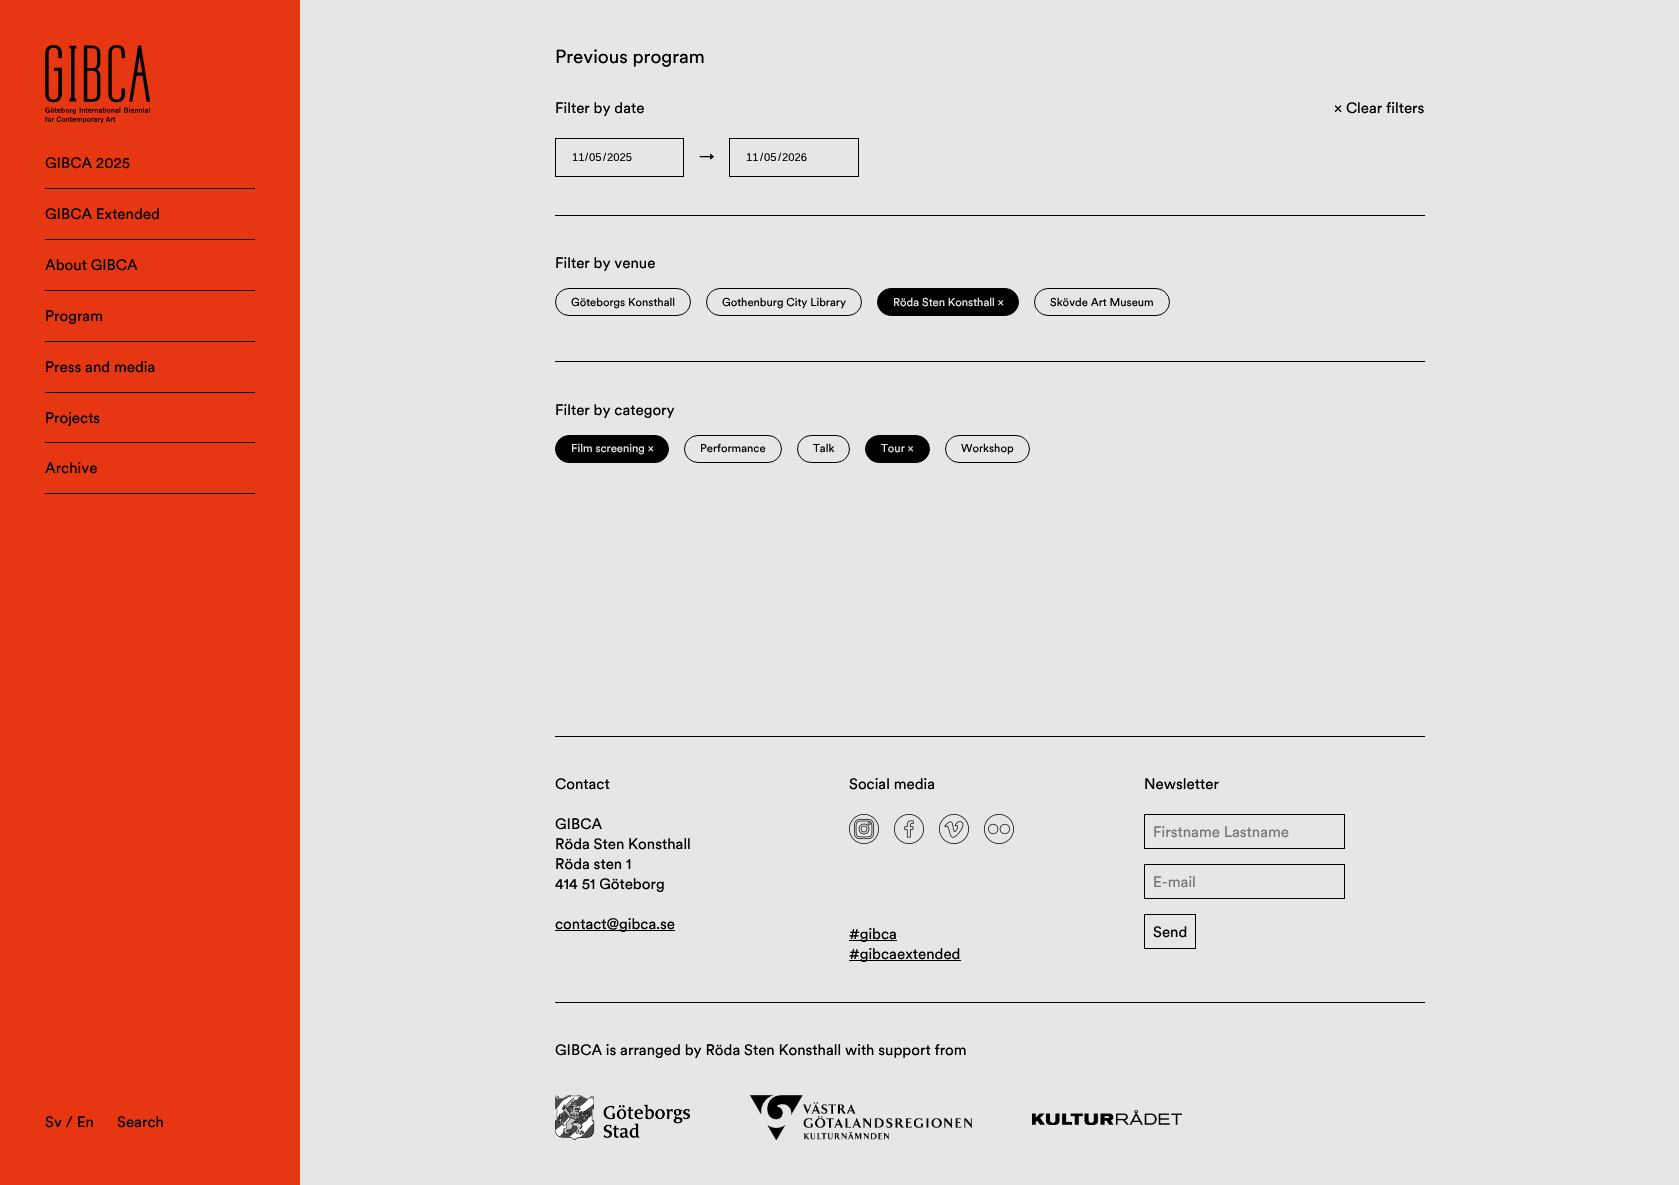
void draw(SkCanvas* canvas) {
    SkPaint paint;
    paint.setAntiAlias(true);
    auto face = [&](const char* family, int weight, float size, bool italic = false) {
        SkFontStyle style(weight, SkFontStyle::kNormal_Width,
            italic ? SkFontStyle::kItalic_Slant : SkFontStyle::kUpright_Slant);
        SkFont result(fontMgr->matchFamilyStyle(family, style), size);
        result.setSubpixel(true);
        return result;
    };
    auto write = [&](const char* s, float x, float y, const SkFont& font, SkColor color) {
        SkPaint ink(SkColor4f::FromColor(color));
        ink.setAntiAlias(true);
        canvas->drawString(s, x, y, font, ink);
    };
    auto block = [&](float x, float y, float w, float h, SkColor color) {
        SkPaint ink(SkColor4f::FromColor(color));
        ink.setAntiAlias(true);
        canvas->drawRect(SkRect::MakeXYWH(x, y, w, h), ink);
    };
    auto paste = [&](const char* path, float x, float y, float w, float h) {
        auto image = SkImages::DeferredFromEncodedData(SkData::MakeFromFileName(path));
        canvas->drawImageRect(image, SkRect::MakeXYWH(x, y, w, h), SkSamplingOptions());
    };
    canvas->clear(SkColorSetRGB(230, 230, 230));
    block(0, 0, 300, 1185, SkColorSetRGB(230, 54, 18));
    paste("pic1.png", 45, 45, 105, 78);
    block(45, 188, 210, 1, SK_ColorBLACK);
    auto kFont1 = face("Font", 400, 15);
    write("GIBCA 2025", 45, 168, kFont1, SK_ColorBLACK);
    block(45, 239, 210, 1, SK_ColorBLACK);
    write("GIBCA Extended", 45, 219, kFont1, SK_ColorBLACK);
    block(45, 290, 210, 1, SK_ColorBLACK);
    write("About GIBCA", 45, 270, kFont1, SK_ColorBLACK);
    block(45, 341, 210, 1, SK_ColorBLACK);
    write("Program", 45, 321, kFont1, SK_ColorBLACK);
    block(45, 392, 210, 1, SK_ColorBLACK);
    write("Press and media", 45, 372, kFont1, SK_ColorBLACK);
    block(45, 442, 210, 1, SK_ColorBLACK);
    write("Projects", 45, 423, kFont1, SK_ColorBLACK);
    block(45, 493, 210, 1, SK_ColorBLACK);
    write("Archive", 45, 473, kFont1, SK_ColorBLACK);
    write("Sv / En", 45, 1127, kFont1, SK_ColorBLACK);
    write("Search", 117, 1127, kFont1, SK_ColorBLACK);
    auto kFont2 = face("Font", 400, 18.75f);
    write("Previous program", 555, 63, kFont2, SK_ColorBLACK);
    write("Filter by date", 555, 113, kFont1, SK_ColorBLACK);
    paint.setStyle(SkPaint::kStroke_Style);
    paint.setStrokeWidth(1);
    paint.setColor(SK_ColorBLACK);
    canvas->drawRect(SkRect::MakeXYWH(555.5f, 138.5f, 128, 38), paint);
    auto kFont3 = face("Liberation Sans", 400, 11.25f);
    write("11", 572, 161, kFont3, SK_ColorBLACK);
    write("/", 585, 161, kFont3, SK_ColorBLACK);
    write("05", 589, 161, kFont3, SK_ColorBLACK);
    write("/", 603, 161, kFont3, SK_ColorBLACK);
    write("2025", 607, 161, kFont3, SK_ColorBLACK);
    write("→", 699, 161, kFont1, SK_ColorBLACK);
    canvas->drawRect(SkRect::MakeXYWH(729.5f, 138.5f, 129, 38), paint);
    write("11", 746, 161, kFont3, SK_ColorBLACK);
    write("/", 760, 161, kFont3, SK_ColorBLACK);
    write("05", 764, 161, kFont3, SK_ColorBLACK);
    write("/", 778, 161, kFont3, SK_ColorBLACK);
    write("2026", 782, 161, kFont3, SK_ColorBLACK);
    write("× Clear filters", 1334, 113, kFont1, SK_ColorBLACK);
    block(555, 215, 870, 1, SK_ColorBLACK);
    write("Filter by venue", 555, 268, kFont1, SK_ColorBLACK);
    canvas->drawRoundRect(SkRect::MakeXYWH(555.5f, 288.5f, 135, 27), 13.5f, 13.5f, paint);
    auto kFont4 = face("Font", 400, 11.25f);
    write("Göteborgs Konsthall", 571, 306, kFont4, SK_ColorBLACK);
    canvas->drawRoundRect(SkRect::MakeXYWH(706.5f, 288.5f, 155, 27), 13.5f, 13.5f, paint);
    write("Gothenburg City Library", 722, 306, kFont4, SK_ColorBLACK);
    paint.setStyle(SkPaint::kFill_Style);
    canvas->drawRoundRect(SkRect::MakeXYWH(877.5f, 288.5f, 141, 27), 13.5f, 13.5f, paint);
    paint.setStyle(SkPaint::kStroke_Style);
    canvas->drawRoundRect(SkRect::MakeXYWH(877.5f, 288.5f, 141, 27), 13.5f, 13.5f, paint);
    write("Röda Sten Konsthall ×", 893, 306, kFont4, SkColorSetRGB(230, 230, 230));
    canvas->drawRoundRect(SkRect::MakeXYWH(1034.5f, 288.5f, 135, 27), 13.5f, 13.5f, paint);
    write("Skövde Art Museum", 1050, 306, kFont4, SK_ColorBLACK);
    block(555, 361, 870, 1, SK_ColorBLACK);
    write("Filter by category", 555, 415, kFont1, SK_ColorBLACK);
    paint.setStyle(SkPaint::kFill_Style);
    canvas->drawRoundRect(SkRect::MakeXYWH(555.5f, 435.5f, 113, 27), 13.5f, 13.5f, paint);
    paint.setStyle(SkPaint::kStroke_Style);
    canvas->drawRoundRect(SkRect::MakeXYWH(555.5f, 435.5f, 113, 27), 13.5f, 13.5f, paint);
    write("Film screening ×", 571, 452, kFont4, SkColorSetRGB(230, 230, 230));
    canvas->drawRoundRect(SkRect::MakeXYWH(684.5f, 435.5f, 97, 27), 13.5f, 13.5f, paint);
    write("Performance", 700, 452, kFont4, SK_ColorBLACK);
    canvas->drawRoundRect(SkRect::MakeXYWH(797.5f, 435.5f, 52, 27), 13.5f, 13.5f, paint);
    write("Talk", 813, 452, kFont4, SK_ColorBLACK);
    paint.setStyle(SkPaint::kFill_Style);
    canvas->drawRoundRect(SkRect::MakeXYWH(865.5f, 435.5f, 64, 27), 13.5f, 13.5f, paint);
    paint.setStyle(SkPaint::kStroke_Style);
    canvas->drawRoundRect(SkRect::MakeXYWH(865.5f, 435.5f, 64, 27), 13.5f, 13.5f, paint);
    write("Tour ×", 881, 452, kFont4, SkColorSetRGB(230, 230, 230));
    canvas->drawRoundRect(SkRect::MakeXYWH(945.5f, 435.5f, 84, 27), 13.5f, 13.5f, paint);
    write("Workshop", 961, 452, kFont4, SK_ColorBLACK);
    block(555, 736, 870, 1, SK_ColorBLACK);
    write("Contact", 555, 789, kFont1, SK_ColorBLACK);
    write("GIBCA", 555, 829, kFont1, SK_ColorBLACK);
    write("Röda Sten Konsthall", 555, 849, kFont1, SK_ColorBLACK);
    write("Röda sten 1", 555, 869, kFont1, SK_ColorBLACK);
    write("414 51 Göteborg", 555, 889, kFont1, SK_ColorBLACK);
    block(555, 930, 120, 1, SK_ColorBLACK);
    write("contact@gibca.se", 555, 929, kFont1, SK_ColorBLACK);
    write("Social media", 849, 789, kFont1, SK_ColorBLACK);
    paste("pic2.png", 849, 814, 30, 30);
    paste("pic3.png", 894, 814, 30, 30);
    paste("pic4.png", 939, 814, 30, 30);
    paste("pic5.png", 984, 814, 30, 30);
    block(849, 940, 48, 1, SK_ColorBLACK);
    write("#gibca", 849, 939, kFont1, SK_ColorBLACK);
    block(849, 960, 112, 1, SK_ColorBLACK);
    write("#gibcaextended", 849, 959, kFont1, SK_ColorBLACK);
    write("Newsletter", 1144, 789, kFont1, SK_ColorBLACK);
    canvas->drawRect(SkRect::MakeXYWH(1144.5f, 814.5f, 200, 34), paint);
    write("Firstname Lastname", 1153, 837, kFont1, SkColorSetRGB(117, 117, 117));
    canvas->drawRect(SkRect::MakeXYWH(1144.5f, 864.5f, 200, 34), paint);
    write("E-mail", 1153, 887, kFont1, SkColorSetRGB(117, 117, 117));
    canvas->drawRect(SkRect::MakeXYWH(1144.5f, 914.5f, 51, 34), paint);
    write("Send", 1153, 937, kFont1, SK_ColorBLACK);
    block(555, 1002, 870, 1, SK_ColorBLACK);
    write("GIBCA is arranged by Röda Sten Konsthall with support from", 555, 1055, kFont1, SK_ColorBLACK);
    paste("pic6.png", 555, 1095, 135, 45);
    paste("pic7.png", 750, 1095, 222, 45);
    paste("pic8.png", 1032, 1110, 150, 15);
}
